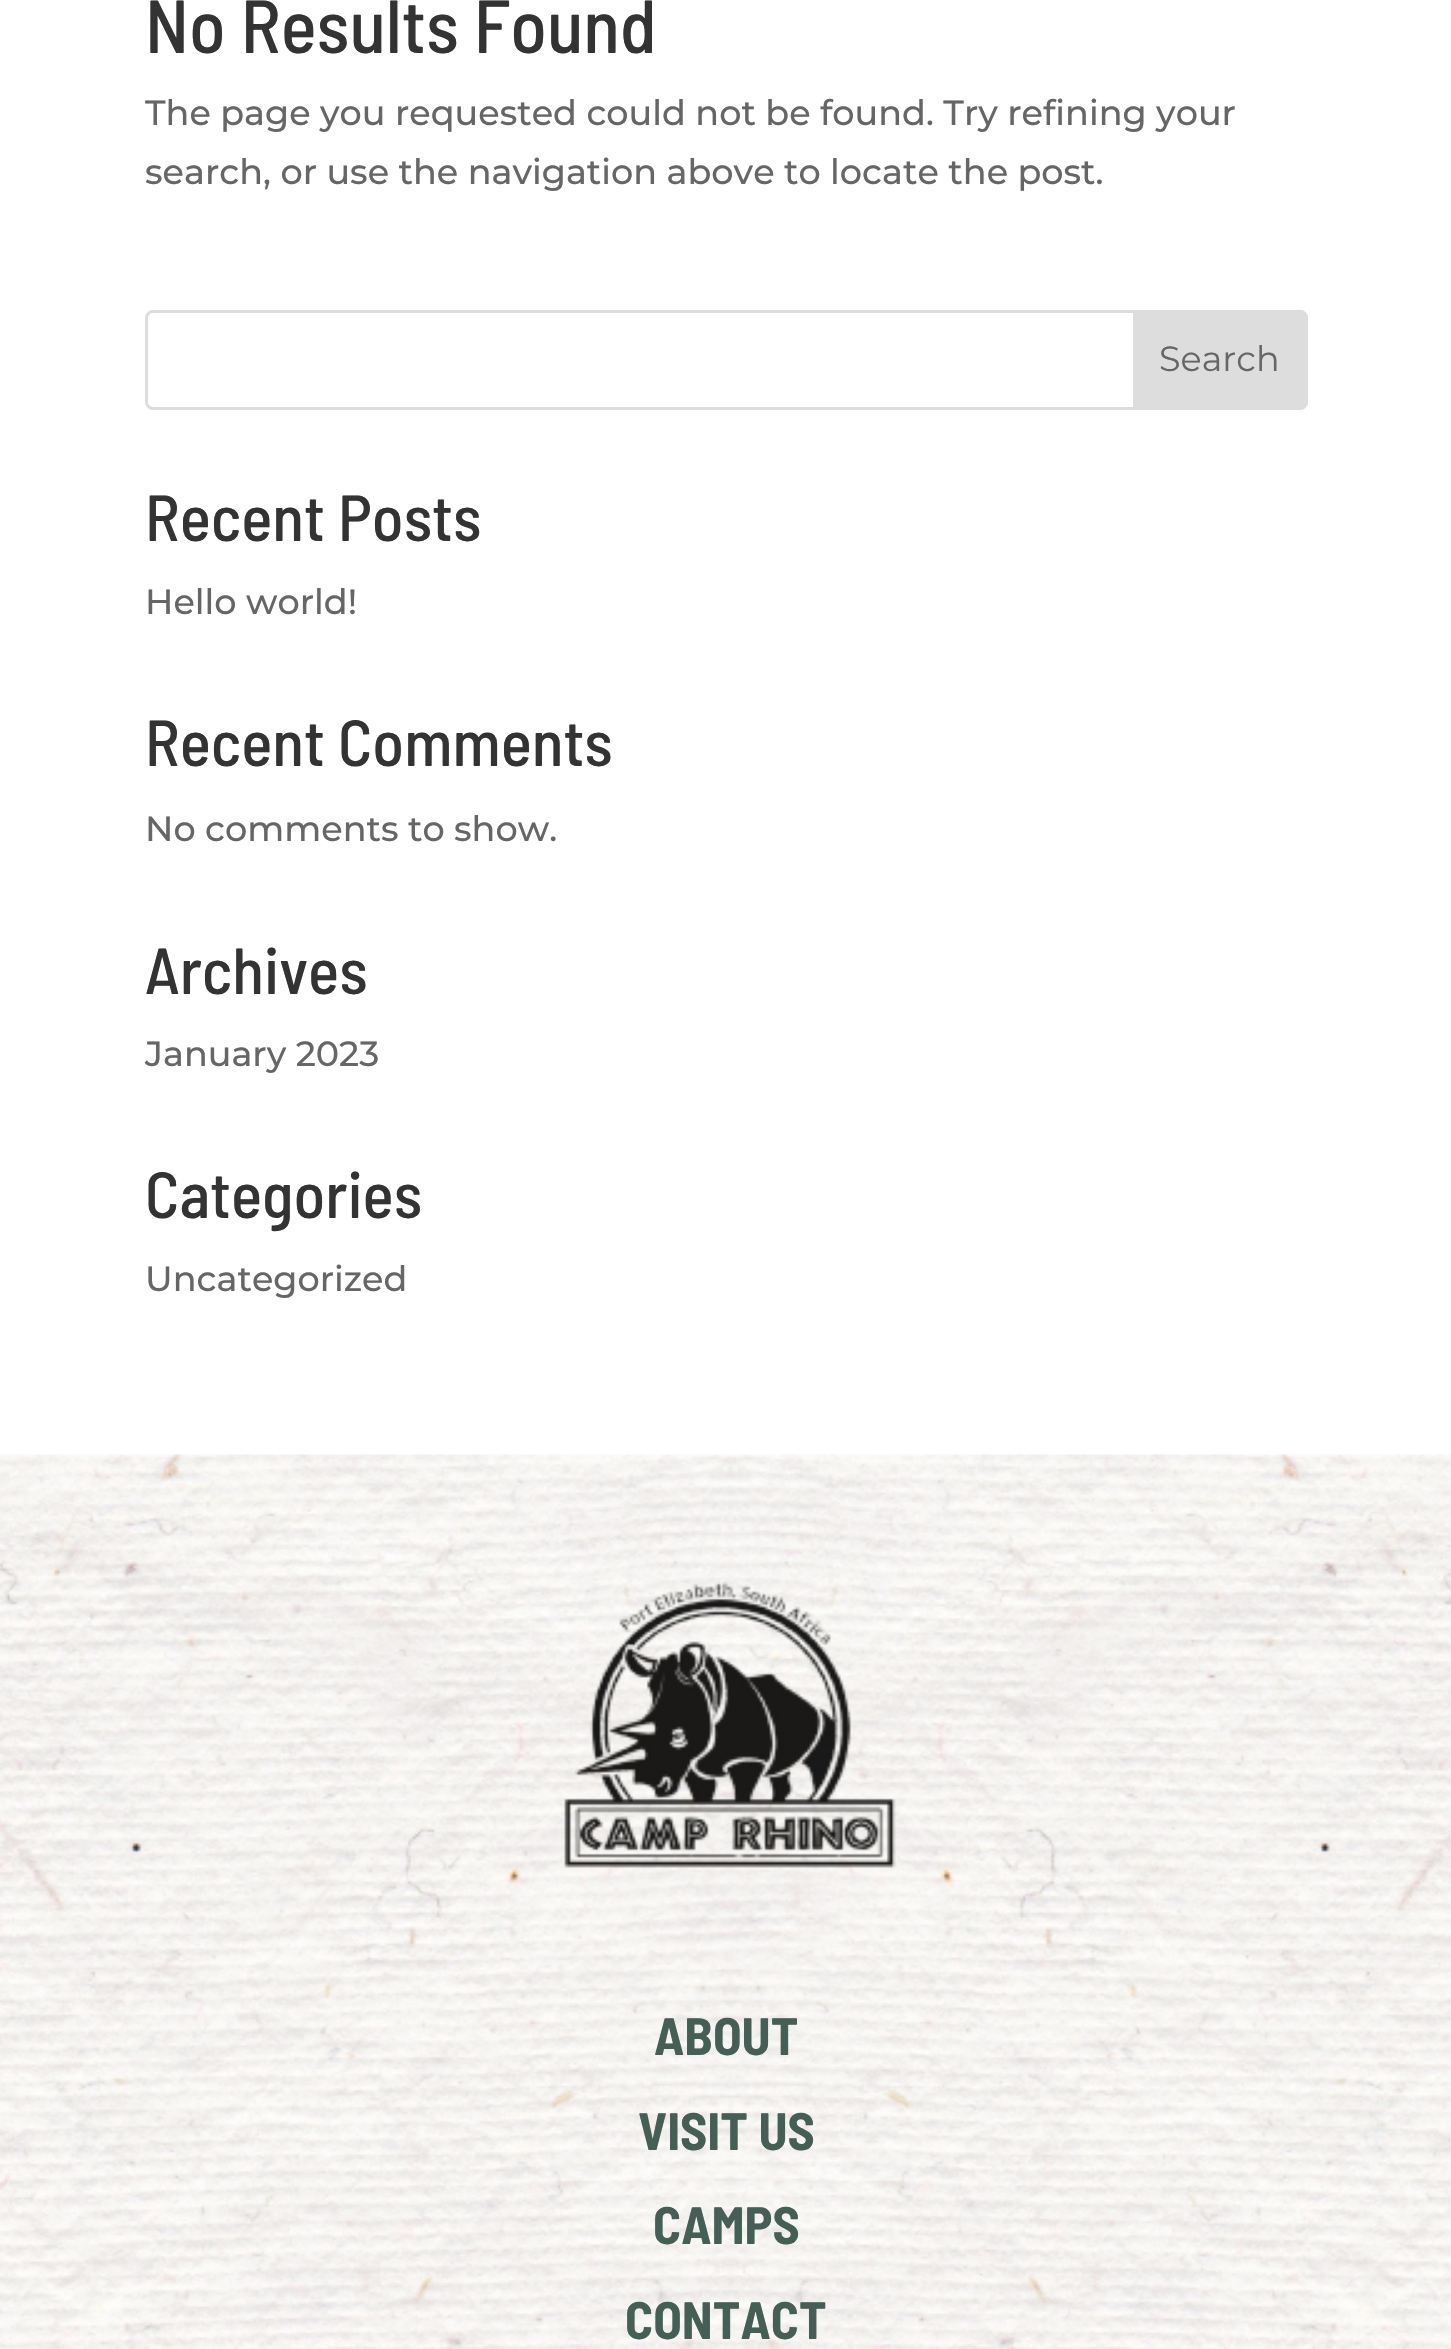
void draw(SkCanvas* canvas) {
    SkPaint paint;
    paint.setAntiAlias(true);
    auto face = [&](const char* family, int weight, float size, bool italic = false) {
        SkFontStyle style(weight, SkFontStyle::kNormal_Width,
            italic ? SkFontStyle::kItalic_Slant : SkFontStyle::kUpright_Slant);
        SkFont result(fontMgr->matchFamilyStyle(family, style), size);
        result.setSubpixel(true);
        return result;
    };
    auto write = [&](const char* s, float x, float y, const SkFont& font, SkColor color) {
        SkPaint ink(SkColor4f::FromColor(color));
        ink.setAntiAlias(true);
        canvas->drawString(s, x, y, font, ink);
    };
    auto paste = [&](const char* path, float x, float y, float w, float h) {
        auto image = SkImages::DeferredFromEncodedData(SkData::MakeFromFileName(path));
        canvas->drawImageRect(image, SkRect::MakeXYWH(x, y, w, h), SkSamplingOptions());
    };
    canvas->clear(SK_ColorWHITE);
    auto kFont1 = face("Barlow Semi Condensed", 500, 75);
    write("No Results Found", 145, 53, kFont1, SkColorSetRGB(51, 51, 51));
    auto kFont2 = face("Montserrat", 500, 35);
    write("The page you requested could not be found. Try refining your", 145, 125, kFont2, SkColorSetRGB(102, 102, 102));
    write("search, or use the navigation above to locate the post.", 145, 184, kFont2, SkColorSetRGB(102, 102, 102));
    paint.setStyle(SkPaint::kStroke_Style);
    paint.setStrokeWidth(3);
    paint.setColor(SkColorSetRGB(221, 221, 221));
    canvas->drawRoundRect(SkRect::MakeXYWH(146.5f, 311.5f, 1160, 97), 6.5f, 6.5f, paint);
    paint.setStyle(SkPaint::kFill_Style);
    canvas->drawPath(SkPathBuilder().moveTo(1134.5f, 311.5f).lineTo(1300, 311.5f).cubicTo(1303.5f, 311.5f, 1306.5f, 314.5f, 1306.5f, 318).lineTo(1306.5f, 402).cubicTo(1306.5f, 405.5f, 1303.5f, 408.5f, 1300, 408.5f).lineTo(1134.5f, 408.5f).close().detach(), paint);
    paint.setStyle(SkPaint::kStroke_Style);
    canvas->drawPath(SkPathBuilder().moveTo(1134.5f, 311.5f).lineTo(1300, 311.5f).cubicTo(1303.5f, 311.5f, 1306.5f, 314.5f, 1306.5f, 318).lineTo(1306.5f, 402).cubicTo(1306.5f, 405.5f, 1303.5f, 408.5f, 1300, 408.5f).lineTo(1134.5f, 408.5f).close().detach(), paint);
    auto kFont3 = face("Montserrat", 400, 35);
    write("Search", 1159, 371, kFont3, SkColorSetRGB(102, 102, 102));
    auto kFont4 = face("Barlow Semi Condensed", 500, 65);
    write("Recent Posts", 145, 541, kFont4, SkColorSetRGB(51, 51, 51));
    write("Hello world!", 145, 614, kFont2, SkColorSetRGB(102, 102, 102));
    write("Recent Comments", 145, 766, kFont4, SkColorSetRGB(51, 51, 51));
    write("No comments to show.", 145, 841, kFont2, SkColorSetRGB(102, 102, 102));
    write("Archives", 145, 994, kFont4, SkColorSetRGB(51, 51, 51));
    write("January 2023", 145, 1066, kFont2, SkColorSetRGB(102, 102, 102));
    write("Categories", 145, 1218, kFont4, SkColorSetRGB(51, 51, 51));
    write("Uncategorized", 145, 1291, kFont2, SkColorSetRGB(102, 102, 102));
    paste("pic1.png", 0, 1454, 1451, 895);
    paste("pic2.png", 564, 1581, 332, 287);
    auto kFont5 = face("Barlow Semi Condensed", 700, 52.5f);
    write("ABOUT", 654, 2055, kFont5, SkColorSetRGB(69, 95, 87));
    write("VISIT US", 638, 2150, kFont5, SkColorSetRGB(69, 95, 87));
    write("CAMPS", 653, 2244, kFont5, SkColorSetRGB(69, 95, 87));
    write("CONTACT", 625, 2339, kFont5, SkColorSetRGB(69, 95, 87));
}
